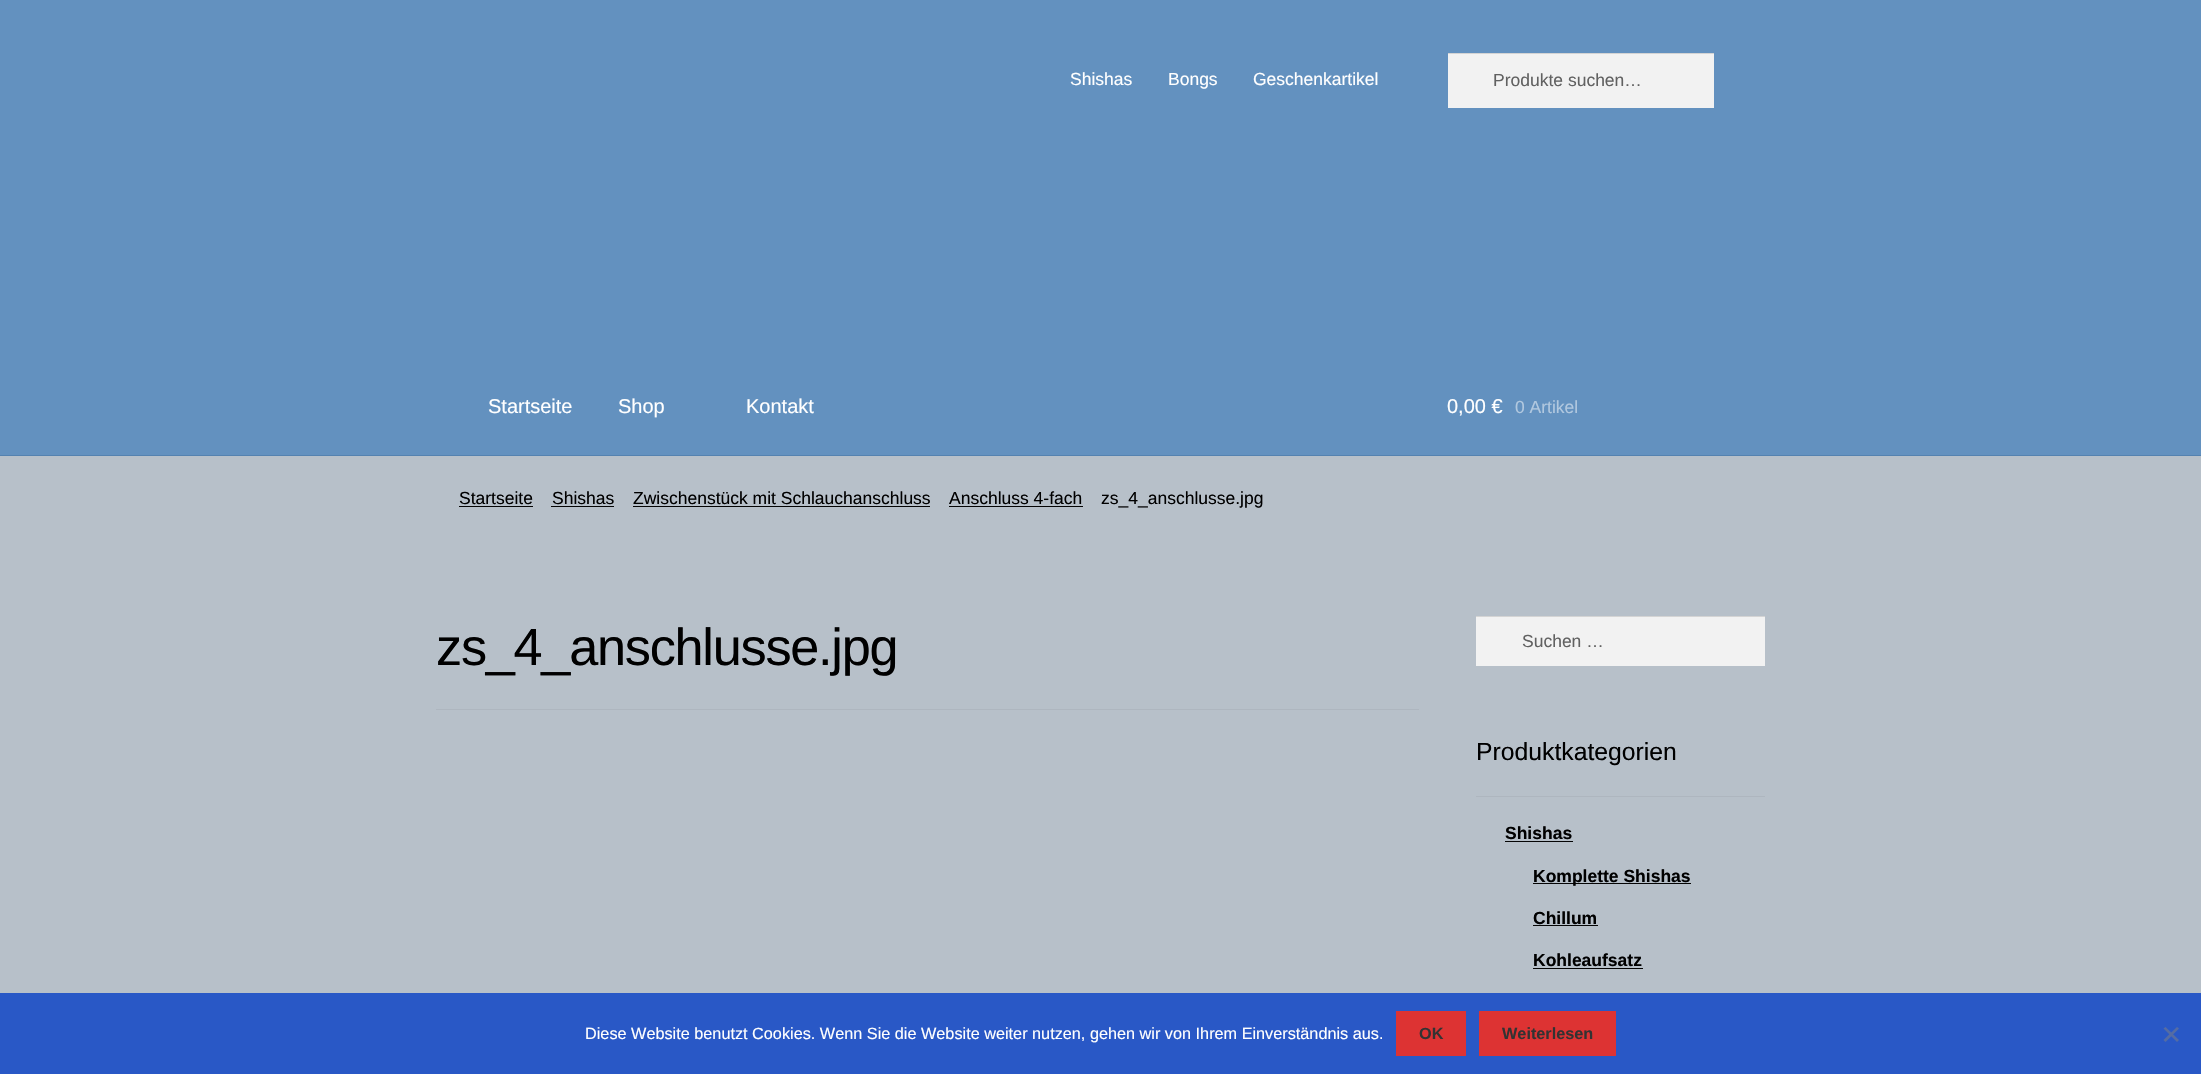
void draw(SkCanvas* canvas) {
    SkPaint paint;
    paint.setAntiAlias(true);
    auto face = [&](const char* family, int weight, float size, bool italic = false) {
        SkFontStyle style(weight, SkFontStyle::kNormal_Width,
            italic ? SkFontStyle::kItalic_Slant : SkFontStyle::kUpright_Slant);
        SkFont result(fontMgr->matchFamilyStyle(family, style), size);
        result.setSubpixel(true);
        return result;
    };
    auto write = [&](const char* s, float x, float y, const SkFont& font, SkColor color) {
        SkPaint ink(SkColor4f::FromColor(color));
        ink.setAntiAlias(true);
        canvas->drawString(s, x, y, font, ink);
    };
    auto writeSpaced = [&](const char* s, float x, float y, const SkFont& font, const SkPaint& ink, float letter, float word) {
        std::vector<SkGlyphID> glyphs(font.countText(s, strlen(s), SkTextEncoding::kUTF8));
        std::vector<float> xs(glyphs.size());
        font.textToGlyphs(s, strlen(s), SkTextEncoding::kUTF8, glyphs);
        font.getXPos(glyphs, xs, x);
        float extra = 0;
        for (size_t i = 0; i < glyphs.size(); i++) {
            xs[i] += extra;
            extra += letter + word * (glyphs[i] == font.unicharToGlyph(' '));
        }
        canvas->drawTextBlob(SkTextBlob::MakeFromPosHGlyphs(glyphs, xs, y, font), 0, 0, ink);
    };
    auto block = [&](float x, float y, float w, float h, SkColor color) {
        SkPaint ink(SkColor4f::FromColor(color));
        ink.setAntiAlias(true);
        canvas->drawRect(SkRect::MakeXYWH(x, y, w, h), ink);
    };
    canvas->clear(SkColorSetRGB(183, 192, 201));
    block(0, 0, 2201, 455, SkColorSetRGB(99, 145, 191));
    block(0, 455, 2201, 1, SkColorSetRGB(84, 130, 176));
    auto kFont1 = face("Liberation Sans", 400, 17.5f);
    write("Shishas", 1070, 85, kFont1, SK_ColorWHITE);
    write("Bongs", 1168, 85, kFont1, SK_ColorWHITE);
    write("Geschenkartikel", 1253, 85, kFont1, SK_ColorWHITE);
    block(1448, 54, 266, 54, SkColorSetRGB(242, 242, 242));
    block(1448, 53, 266, 1, SkColorSetRGB(212, 212, 212));
    write("Produkte suchen…", 1493, 86, kFont1, SkColorSetRGB(97, 97, 97));
    auto kFont2 = face("Liberation Sans", 400, 20);
    write("Startseite", 488, 413, kFont2, SK_ColorWHITE);
    write("Shop", 618, 413, kFont2, SK_ColorWHITE);
    write("Kontakt", 746, 413, kFont2, SK_ColorWHITE);
    write("0,00 €", 1447, 413, kFont2, SK_ColorWHITE);
    write("0 Artikel", 1515, 413, kFont1, SkColorSetRGB(177, 200, 223));
    write("Startseite", 459, 504, kFont1, SK_ColorBLACK);
    block(459, 506, 74, 1, SkColorSetRGB(5, 5, 5));
    write("Shishas", 552, 504, kFont1, SK_ColorBLACK);
    block(551, 506, 63, 1, SkColorSetRGB(5, 5, 5));
    write("Zwischenstück mit Schlauchanschluss", 633, 504, kFont1, SK_ColorBLACK);
    block(633, 506, 297, 1, SkColorSetRGB(5, 5, 5));
    write("Anschluss 4-fach", 949, 504, kFont1, SK_ColorBLACK);
    block(949, 506, 134, 1, SkColorSetRGB(5, 5, 5));
    write("zs_4_anschlusse.jpg", 1101, 504, kFont1, SK_ColorBLACK);
    block(436, 709, 983, 1, SkColorSetRGB(174, 182, 191));
    auto kFont3 = face("Liberation Sans", 400, 52.25f);
    paint.setColor(SK_ColorBLACK);
    writeSpaced("zs_4_anschlusse.jpg", 436, 665, kFont3, paint, -1.25f, 0);
    block(1476, 617, 289, 49, SkColorSetRGB(242, 242, 242));
    block(1476, 616, 289, 1, SkColorSetRGB(212, 212, 212));
    write("Suchen …", 1522, 647, kFont1, SkColorSetRGB(97, 97, 97));
    block(1476, 796, 289, 1, SkColorSetRGB(174, 182, 191));
    auto kFont4 = face("Liberation Sans", 400, 24.75f);
    write("Produktkategorien", 1476, 760, kFont4, SK_ColorBLACK);
    auto kFont5 = face("Liberation Sans", 700, 17.5f);
    write("Shishas", 1505, 839, kFont5, SK_ColorBLACK);
    block(1505, 841, 68, 1, SkColorSetRGB(5, 5, 5));
    block(1533, 883, 158, 1, SkColorSetRGB(5, 5, 5));
    write("Komplette Shishas", 1533, 882, kFont5, SK_ColorBLACK);
    write("Chillum", 1533, 924, kFont5, SK_ColorBLACK);
    block(1533, 925, 65, 1, SkColorSetRGB(5, 5, 5));
    write("Kohleaufsatz", 1533, 966, kFont5, SK_ColorBLACK);
    block(1533, 968, 110, 1, SkColorSetRGB(5, 5, 5));
    block(0, 993, 2201, 81, SkColorSetRGB(41, 88, 198));
    auto kFont6 = face("Liberation Sans", 400, 16.25f);
    write("Diese Website benutzt Cookies. Wenn Sie die Website weiter nutzen, gehen wir von Ihrem Einverständnis aus.", 585, 1039, kFont6, SK_ColorWHITE);
    block(1396, 1011, 70, 45, SkColorSetRGB(221, 51, 51));
    auto kFont7 = face("Liberation Sans", 700, 16.25f);
    write("OK", 1419, 1039, kFont7, SkColorSetRGB(51, 51, 51));
    block(1479, 1011, 137, 45, SkColorSetRGB(221, 51, 51));
    write("Weiterlesen", 1502, 1039, kFont7, SkColorSetRGB(51, 51, 51));
    paint.setColor(SkColorSetRGB(85, 108, 163));
    canvas->drawPath(SkPathBuilder().moveTo(2177, 1027).lineTo(2179, 1028.5f).lineTo(2165.5f, 1042).lineTo(2163.5f, 1040).close().detach(), paint);
    canvas->drawPath(SkPathBuilder().moveTo(2163.5f, 1028.5f).lineTo(2165.5f, 1027).lineTo(2179, 1040).lineTo(2177, 1042).close().detach(), paint);
}
